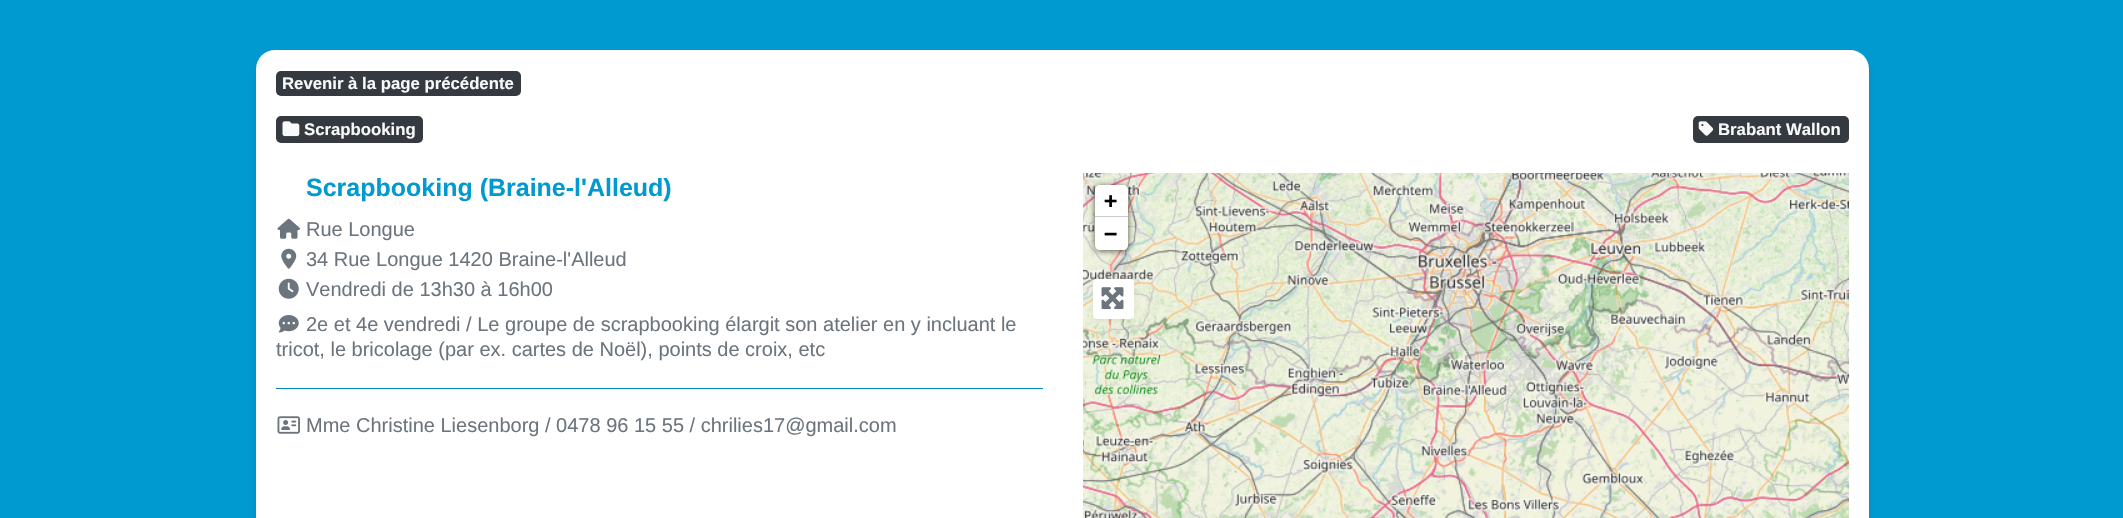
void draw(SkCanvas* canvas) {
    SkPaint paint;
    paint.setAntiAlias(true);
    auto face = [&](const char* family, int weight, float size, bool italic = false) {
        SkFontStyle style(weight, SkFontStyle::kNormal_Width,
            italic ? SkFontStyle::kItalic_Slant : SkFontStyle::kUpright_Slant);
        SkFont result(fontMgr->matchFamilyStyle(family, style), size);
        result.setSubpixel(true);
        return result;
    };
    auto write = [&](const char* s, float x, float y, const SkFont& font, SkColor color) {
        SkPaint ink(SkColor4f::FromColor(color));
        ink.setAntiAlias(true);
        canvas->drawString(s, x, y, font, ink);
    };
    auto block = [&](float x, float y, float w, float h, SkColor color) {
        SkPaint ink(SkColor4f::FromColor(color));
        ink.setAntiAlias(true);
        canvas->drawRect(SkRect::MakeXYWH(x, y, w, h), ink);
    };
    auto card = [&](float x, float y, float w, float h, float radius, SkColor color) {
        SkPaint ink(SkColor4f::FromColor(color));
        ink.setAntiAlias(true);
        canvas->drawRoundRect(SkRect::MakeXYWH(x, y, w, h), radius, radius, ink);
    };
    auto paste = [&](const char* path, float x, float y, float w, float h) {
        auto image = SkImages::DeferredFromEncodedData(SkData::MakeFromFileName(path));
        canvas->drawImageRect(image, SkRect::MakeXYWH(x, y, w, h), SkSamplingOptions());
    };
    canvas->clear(SkColorSetRGB(0, 153, 208));
    paint.setColor(SkColorSetARGB(18, 0, 0, 0));
    paint.setMaskFilter(SkMaskFilter::MakeBlur(kNormal_SkBlurStyle, 2.5f));
    canvas->drawRoundRect(SkRect::MakeXYWH(256, 53, 1613, 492), 19, 19, paint);
    paint.setMaskFilter(nullptr);
    card(256, 50, 1613, 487, 19, SK_ColorWHITE);
    card(276, 71, 245, 25, 5, SkColorSetRGB(52, 58, 64));
    auto kFont1 = face("Liberation Sans", 700, 16.75f);
    write("Revenir à la page précédente", 282, 89, kFont1, SkColorSetRGB(248, 249, 250));
    card(276, 116, 147, 27, 5, SkColorSetRGB(52, 58, 64));
    paste("pic1.png", 282, 121, 18, 16);
    write("Scrapbooking", 304, 135, kFont1, SkColorSetRGB(248, 249, 250));
    card(1693, 116, 156, 27, 5, SkColorSetRGB(52, 58, 64));
    paste("pic2.png", 1698, 121, 16, 15);
    write("Brabant Wallon", 1718, 135, kFont1, SkColorSetRGB(248, 249, 250));
    auto kFont2 = face("Liberation Sans", 700, 25);
    write("Scrapbooking (Braine-l'Alleud)", 306, 196, kFont2, SkColorSetRGB(0, 153, 208));
    paste("pic3.png", 277, 218, 23, 21);
    auto kFont3 = face("Liberation Sans", 400, 20);
    write("Rue Longue", 306, 236, kFont3, SkColorSetRGB(108, 117, 125));
    paste("pic4.png", 281, 248, 16, 21);
    write("34 Rue Longue 1420 Braine-l'Alleud", 306, 266, kFont3, SkColorSetRGB(108, 117, 125));
    paste("pic5.png", 278, 278, 21, 21);
    write("Vendredi de 13h30 à 16h00", 306, 296, kFont3, SkColorSetRGB(108, 117, 125));
    paste("pic6.png", 278, 315, 21, 18);
    write("2e et 4e vendredi / Le groupe de scrapbooking élargit son atelier en y incluant le", 306, 331, kFont3, SkColorSetRGB(108, 117, 125));
    write("tricot, le bricolage (par ex. cartes de Noël), points de croix, etc", 276, 356, kFont3, SkColorSetRGB(108, 117, 125));
    block(276, 388, 767, 1, SkColorSetRGB(0, 138, 187));
    paste("pic7.png", 277, 416, 23, 18);
    write("Mme Christine Liesenborg / 0478 96 15 55 / chrilies17@gmail.com", 306, 432, kFont3, SkColorSetRGB(108, 117, 125));
    block(1083, 173, 766, 345, SkColorSetRGB(221, 221, 221));
    paste("pic8.png", 1083, 173, 313, 178);
    paste("pic9.png", 1396, 173, 320, 178);
    paste("pic10.png", 1716, 173, 133, 178);
    paste("pic11.png", 1083, 351, 313, 167);
    paste("pic12.png", 1396, 351, 320, 167);
    paste("pic13.png", 1716, 351, 133, 167);
    paint.setColor(SkColorSetARGB(166, 0, 0, 0));
    paint.setMaskFilter(SkMaskFilter::MakeBlur(kNormal_SkBlurStyle, 3));
    canvas->drawRoundRect(SkRect::MakeXYWH(1095, 186, 33, 65), 5, 5, paint);
    paint.setMaskFilter(nullptr);
    paint.setColor(SK_ColorWHITE);
    canvas->drawPath(SkPathBuilder().moveTo(1100, 185).lineTo(1123, 185).cubicTo(1126, 185, 1128, 187, 1128, 190).lineTo(1128, 218).lineTo(1095, 218).lineTo(1095, 190).cubicTo(1095, 187, 1097, 185, 1100, 185).close().detach(), paint);
    block(1095, 216, 33, 1, SkColorSetRGB(204, 204, 204));
    auto kFont4 = face("DejaVu Sans Mono", 700, 22);
    write("+", 1104, 208, kFont4, SK_ColorBLACK);
    canvas->drawPath(SkPathBuilder().moveTo(1095, 218).lineTo(1128, 218).lineTo(1128, 245).cubicTo(1128, 248, 1126, 250, 1123, 250).lineTo(1100, 250).cubicTo(1097, 250, 1095, 248, 1095, 245).close().detach(), paint);
    write("−", 1104, 241, kFont4, SK_ColorBLACK);
    paint.setColor(SkColorSetARGB(18, 0, 0, 0));
    paint.setMaskFilter(SkMaskFilter::MakeBlur(kNormal_SkBlurStyle, 2.5f));
    canvas->drawRoundRect(SkRect::MakeXYWH(1093, 281, 41, 40), 4, 4, paint);
    paint.setMaskFilter(nullptr);
    card(1093, 279, 41, 40, 4, SK_ColorWHITE);
    paste("pic14.png", 1101, 287, 23, 23);
}
